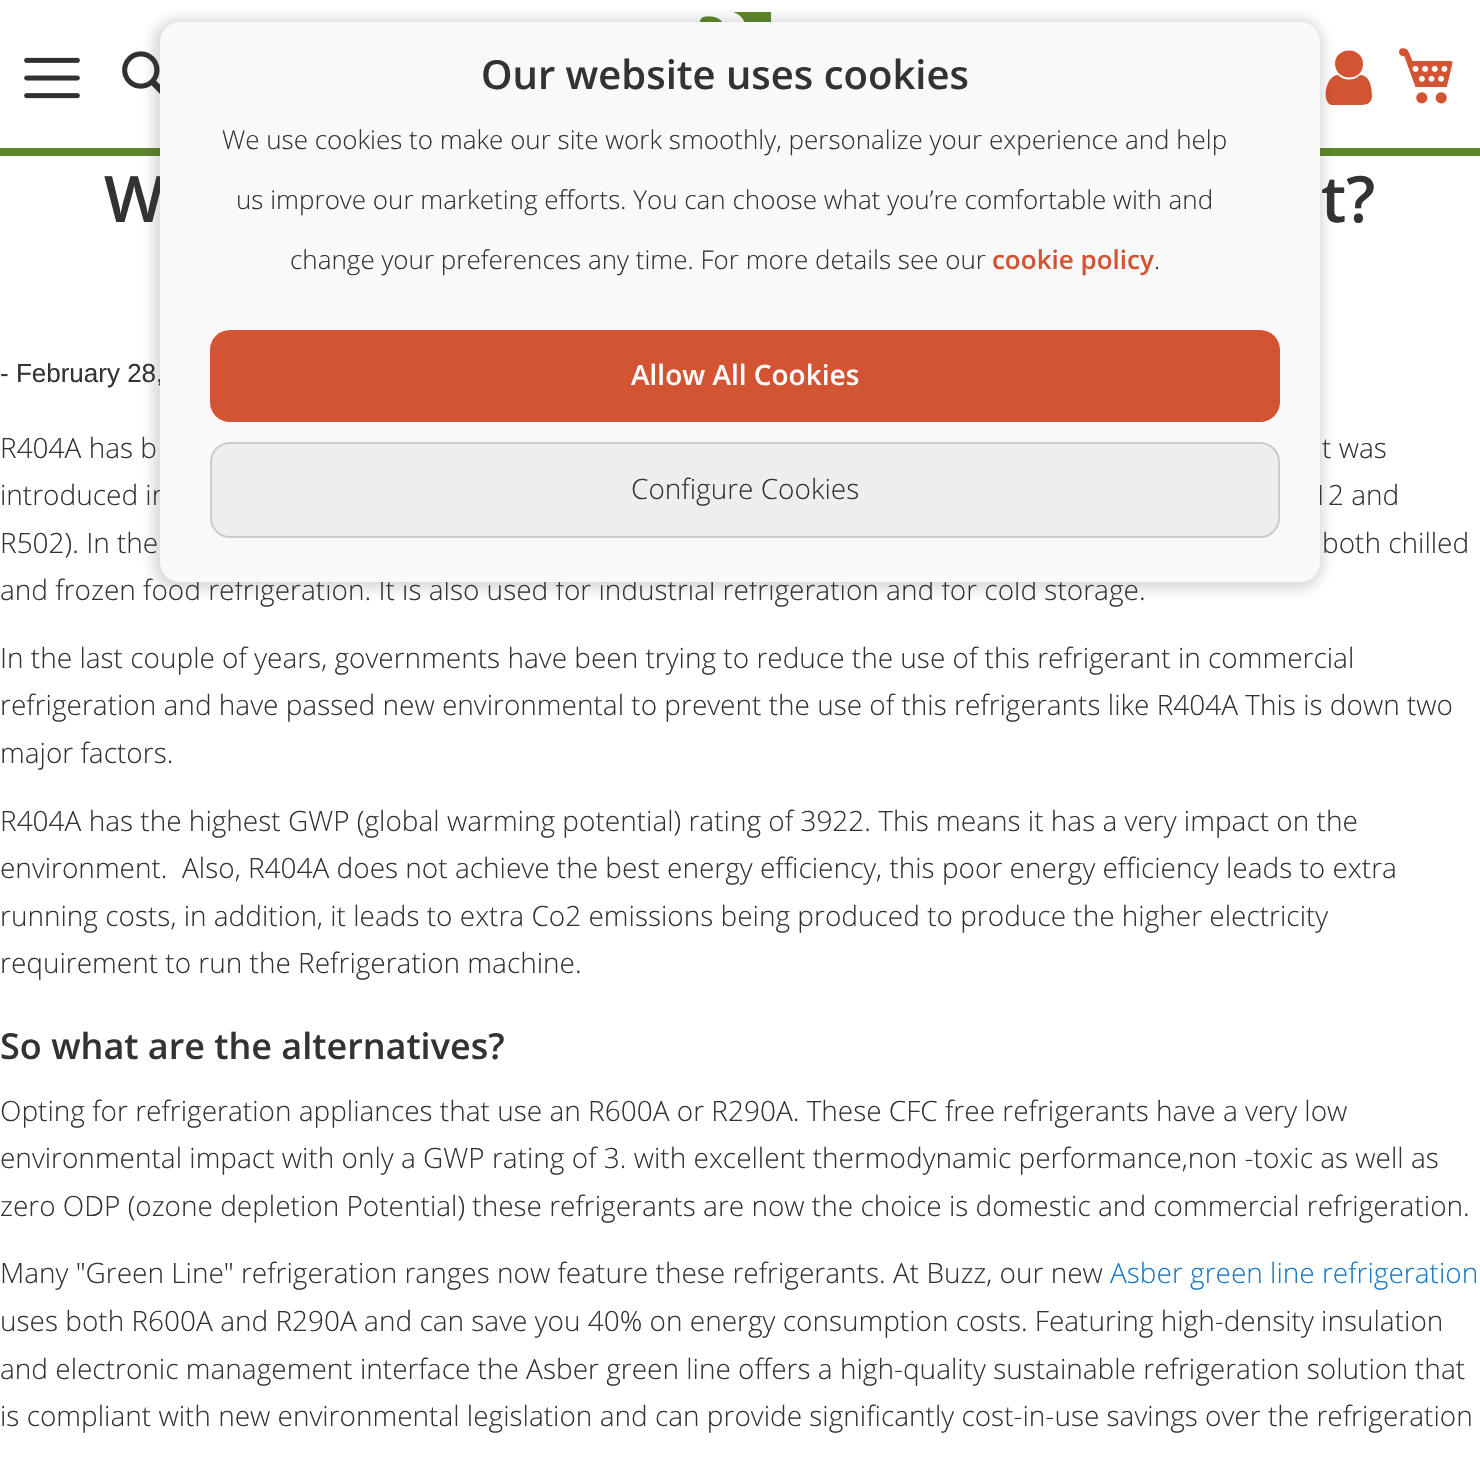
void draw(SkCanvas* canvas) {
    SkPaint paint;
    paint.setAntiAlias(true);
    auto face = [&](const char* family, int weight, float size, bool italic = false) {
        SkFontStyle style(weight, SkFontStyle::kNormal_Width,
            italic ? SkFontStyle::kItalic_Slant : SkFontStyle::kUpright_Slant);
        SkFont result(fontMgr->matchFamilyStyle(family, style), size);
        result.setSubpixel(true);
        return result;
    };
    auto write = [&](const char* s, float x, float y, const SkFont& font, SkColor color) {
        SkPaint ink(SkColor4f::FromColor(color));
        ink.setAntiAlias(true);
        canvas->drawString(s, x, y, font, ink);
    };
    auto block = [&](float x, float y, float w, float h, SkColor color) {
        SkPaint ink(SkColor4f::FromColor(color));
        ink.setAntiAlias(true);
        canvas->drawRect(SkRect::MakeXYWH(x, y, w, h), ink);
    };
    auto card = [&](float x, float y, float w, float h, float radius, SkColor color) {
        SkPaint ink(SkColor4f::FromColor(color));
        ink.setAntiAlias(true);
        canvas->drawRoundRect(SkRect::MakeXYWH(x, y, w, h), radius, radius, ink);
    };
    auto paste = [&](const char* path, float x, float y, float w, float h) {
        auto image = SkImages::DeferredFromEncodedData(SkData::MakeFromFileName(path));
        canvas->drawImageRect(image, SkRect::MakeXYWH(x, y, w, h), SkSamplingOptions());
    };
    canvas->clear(SK_ColorWHITE);
    block(0, 148, 1480, 8, SkColorSetRGB(92, 135, 39));
    paste("pic1.png", 690, 12, 81, 10);
    paste("pic3.png", 122, 51, 38, 43);
    paint.setColor(SkColorSetRGB(211, 84, 51));
    canvas->drawPath(SkPathBuilder().moveTo(1372, 96).cubicTo(1372, 104, 1366, 105, 1359, 105).lineTo(1331, 105).cubicTo(1321, 101, 1326, 75, 1338, 75).cubicTo(1344, 81, 1354, 81, 1360, 75).cubicTo(1370, 75, 1372, 88, 1372, 96).close().moveTo(1363, 64).cubicTo(1363, 82, 1336, 82, 1335, 64).cubicTo(1335, 46, 1363, 46, 1363, 64).close().detach(), paint);
    paint.setColor(SkColorSetARGB(43, 49, 49, 49));
    paint.setMaskFilter(SkMaskFilter::MakeBlur(kNormal_SkBlurStyle, 6));
    canvas->drawRoundRect(SkRect::MakeXYWH(152, 18, 1172, 572), 26, 26, paint);
    paint.setMaskFilter(nullptr);
    auto kFont1 = face("Open Sans", 600, 64);
    write("W", 104, 222, kFont1, SkColorSetRGB(51, 51, 51));
    auto kFont2 = face("Liberation Sans", 400, 26);
    write("- February 28,", 0, 382, kFont2, SkColorSetRGB(51, 51, 51));
    auto kFont3 = face("Open Sans", 300, 28);
    write("introduced in", 0, 505, kFont3, SkColorSetRGB(51, 51, 51));
    write("12 and", 1312, 505, kFont3, SkColorSetRGB(51, 51, 51));
    write("and frozen food refrigeration. It is also used for industrial refrigeration and for cold storage.", 0, 600, kFont3, SkColorSetRGB(51, 51, 51));
    card(160, 22, 1160, 560, 20, SkColorSetRGB(249, 249, 249));
    auto kFont4 = face("Open Sans", 600, 40);
    write("Our website uses cookies", 481, 89, kFont4, SkColorSetRGB(51, 51, 51));
    auto kFont5 = face("Open Sans", 300, 26);
    write("We use cookies to make our site work smoothly, personalize your experience and help", 222, 149, kFont5, SkColorSetRGB(51, 51, 51));
    write("us improve our marketing efforts. You can choose what you’re comfortable with and", 236, 209, kFont5, SkColorSetRGB(51, 51, 51));
    write("change your preferences any time. For more details see our", 290, 269, kFont5, SkColorSetRGB(51, 51, 51));
    auto kFont6 = face("Open Sans", 600, 26);
    write("cookie policy", 992, 269, kFont6, SkColorSetRGB(211, 84, 51));
    write(".", 1154, 269, kFont5, SkColorSetRGB(51, 51, 51));
    card(210, 330, 1070, 92, 20, SkColorSetRGB(211, 84, 51));
    auto kFont7 = face("Open Sans", 600, 28);
    write("Allow All Cookies", 631, 385, kFont7, SK_ColorWHITE);
    paint.setColor(SkColorSetRGB(238, 238, 238));
    canvas->drawRoundRect(SkRect::MakeXYWH(211, 443, 1068, 94), 19, 19, paint);
    paint.setStyle(SkPaint::kStroke_Style);
    paint.setStrokeWidth(2);
    paint.setColor(SkColorSetRGB(204, 204, 204));
    canvas->drawRoundRect(SkRect::MakeXYWH(211, 443, 1068, 94), 19, 19, paint);
    write("Configure Cookies", 631, 499, kFont3, SkColorSetRGB(51, 51, 51));
    paste("pic2.png", 24, 57, 56, 42);
    paste("pic4.png", 1399, 48, 54, 56);
    write("t?", 1321, 222, kFont1, SkColorSetRGB(51, 51, 51));
    write("R404A has b", 0, 458, kFont3, SkColorSetRGB(51, 51, 51));
    write("t was", 1322, 458, kFont3, SkColorSetRGB(51, 51, 51));
    write("R502). In the", 0, 553, kFont3, SkColorSetRGB(51, 51, 51));
    write("both chilled", 1322, 553, kFont3, SkColorSetRGB(51, 51, 51));
    write("In the last couple of years, governments have been trying to reduce the use of this refrigerant in commercial", 0, 668, kFont3, SkColorSetRGB(51, 51, 51));
    write("refrigeration and have passed new environmental to prevent the use of this refrigerants like R404A This is down two", 0, 715, kFont3, SkColorSetRGB(51, 51, 51));
    write("major factors.", 0, 763, kFont3, SkColorSetRGB(51, 51, 51));
    write("R404A has the highest GWP (global warming potential) rating of 3922. This means it has a very impact on the", 0, 831, kFont3, SkColorSetRGB(51, 51, 51));
    write("environment.  Also, R404A does not achieve the best energy efficiency, this poor energy efficiency leads to extra", 0, 878, kFont3, SkColorSetRGB(51, 51, 51));
    write("running costs, in addition, it leads to extra Co2 emissions being produced to produce the higher electricity", 0, 926, kFont3, SkColorSetRGB(51, 51, 51));
    write("requirement to run the Refrigeration machine.", 0, 973, kFont3, SkColorSetRGB(51, 51, 51));
    auto kFont8 = face("Open Sans", 600, 36);
    write("So what are the alternatives?", 0, 1059, kFont8, SkColorSetRGB(51, 51, 51));
    write("Opting for refrigeration appliances that use an R600A or R290A. These CFC free refrigerants have a very low", 0, 1121, kFont3, SkColorSetRGB(51, 51, 51));
    write("environmental impact with only a GWP rating of 3. with excellent thermodynamic performance,non -toxic as well as", 0, 1168, kFont3, SkColorSetRGB(51, 51, 51));
    write("zero ODP (ozone depletion Potential) these refrigerants are now the choice is domestic and commercial refrigeration.", 0, 1216, kFont3, SkColorSetRGB(51, 51, 51));
    write("Many \"Green Line\" refrigeration ranges now feature these refrigerants. At Buzz, our new", 0, 1283, kFont3, SkColorSetRGB(51, 51, 51));
    write("Asber green line refrigeration", 1110, 1283, kFont3, SkColorSetRGB(25, 121, 195));
    write("uses both R600A and R290A and can save you 40% on energy consumption costs. Featuring high-density insulation", 0, 1331, kFont3, SkColorSetRGB(51, 51, 51));
    write("and electronic management interface the Asber green line offers a high-quality sustainable refrigeration solution that", 0, 1379, kFont3, SkColorSetRGB(51, 51, 51));
    write("is compliant with new environmental legislation and can provide significantly cost-in-use savings over the refrigeration", 0, 1426, kFont3, SkColorSetRGB(51, 51, 51));
}
